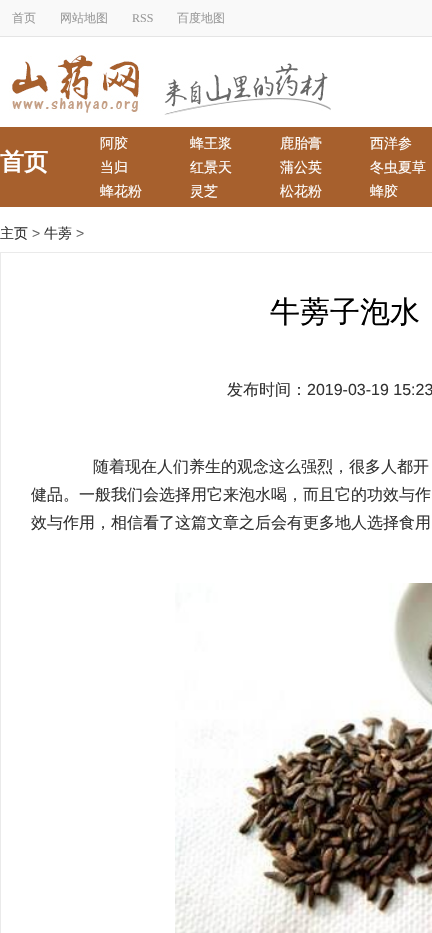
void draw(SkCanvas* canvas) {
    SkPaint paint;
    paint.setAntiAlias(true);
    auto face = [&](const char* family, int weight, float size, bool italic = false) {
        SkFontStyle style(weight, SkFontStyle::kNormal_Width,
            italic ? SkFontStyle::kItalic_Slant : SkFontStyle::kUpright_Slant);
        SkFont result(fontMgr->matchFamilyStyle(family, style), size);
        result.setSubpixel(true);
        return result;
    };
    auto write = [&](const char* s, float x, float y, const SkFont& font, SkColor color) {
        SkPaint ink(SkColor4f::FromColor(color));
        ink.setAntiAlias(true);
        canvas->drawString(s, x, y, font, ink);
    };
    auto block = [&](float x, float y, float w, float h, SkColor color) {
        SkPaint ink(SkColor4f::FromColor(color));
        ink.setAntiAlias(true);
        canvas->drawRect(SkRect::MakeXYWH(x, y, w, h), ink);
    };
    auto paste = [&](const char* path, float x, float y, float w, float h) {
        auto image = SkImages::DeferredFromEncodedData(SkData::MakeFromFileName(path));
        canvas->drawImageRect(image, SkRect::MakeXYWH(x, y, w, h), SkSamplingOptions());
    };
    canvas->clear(SK_ColorWHITE);
    block(0, 0, 432, 36, SkColorSetRGB(249, 249, 249));
    block(0, 36, 432, 1, SkColorSetRGB(229, 229, 229));
    auto kFont1 = face("WenQuanYi Zen Hei", 500, 12);
    write("首页", 12, 22, kFont1, SkColorSetRGB(153, 153, 153));
    write("网站地图", 60, 22, kFont1, SkColorSetRGB(153, 153, 153));
    auto kFont2 = face("Liberation Serif", 400, 12);
    write("RSS", 132, 22, kFont2, SkColorSetRGB(153, 153, 153));
    write("百度地图", 177, 22, kFont1, SkColorSetRGB(153, 153, 153));
    paste("pic1.png", 9, 55, 322, 60);
    block(0, 127, 432, 80, SkColorSetRGB(167, 96, 45));
    auto kFont3 = face("WenQuanYi Zen Hei", 700, 24);
    write("首页", 0, 170, kFont3, SK_ColorWHITE);
    auto kFont4 = face("WenQuanYi Zen Hei", 500, 14);
    write("阿胶", 100, 148, kFont4, SK_ColorWHITE);
    write("蜂王浆", 190, 148, kFont4, SK_ColorWHITE);
    write("鹿胎膏", 280, 148, kFont4, SK_ColorWHITE);
    write("西洋参", 370, 148, kFont4, SK_ColorWHITE);
    write("当归", 100, 172, kFont4, SK_ColorWHITE);
    write("红景天", 190, 172, kFont4, SK_ColorWHITE);
    write("蒲公英", 280, 172, kFont4, SK_ColorWHITE);
    write("冬虫夏草", 370, 172, kFont4, SK_ColorWHITE);
    write("蜂花粉", 100, 196, kFont4, SK_ColorWHITE);
    write("灵芝", 190, 196, kFont4, SK_ColorWHITE);
    write("松花粉", 280, 196, kFont4, SK_ColorWHITE);
    write("蜂胶", 370, 196, kFont4, SK_ColorWHITE);
    write("主页", 0, 238, kFont4, SkColorSetRGB(51, 51, 51));
    auto kFont5 = face("Liberation Sans", 400, 14);
    write(">", 32, 238, kFont5, SkColorSetRGB(102, 102, 102));
    write("牛蒡", 44, 238, kFont4, SkColorSetRGB(51, 51, 51));
    write(">", 76, 238, kFont5, SkColorSetRGB(102, 102, 102));
    paint.setStyle(SkPaint::kStroke_Style);
    paint.setStrokeWidth(1);
    paint.setColor(SkColorSetRGB(234, 234, 234));
    canvas->drawRect(SkRect::MakeXYWH(0.5f, 252.5f, 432, 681), paint);
    auto kFont6 = face("WenQuanYi Zen Hei", 500, 30);
    write("牛蒡子泡水", 270, 322, kFont6, SK_ColorBLACK);
    auto kFont7 = face("WenQuanYi Zen Hei", 500, 16);
    write("发布时间：", 227, 395, kFont7, SkColorSetRGB(51, 51, 51));
    auto kFont8 = face("Liberation Sans", 400, 16);
    write("2019-03-19 15:23", 307, 395, kFont8, SkColorSetRGB(51, 51, 51));
    write("随着现在人们养生的观念这么强烈，很多人都开", 93, 472, kFont7, SkColorSetRGB(51, 51, 51));
    write("健品。一般我们会选择用它来泡水喝，而且它的功效与作", 31, 500, kFont7, SkColorSetRGB(51, 51, 51));
    write("效与作用，相信看了这篇文章之后会有更多地人选择食用", 31, 528, kFont7, SkColorSetRGB(51, 51, 51));
    paste("pic2.png", 175, 583, 257, 350);
}
